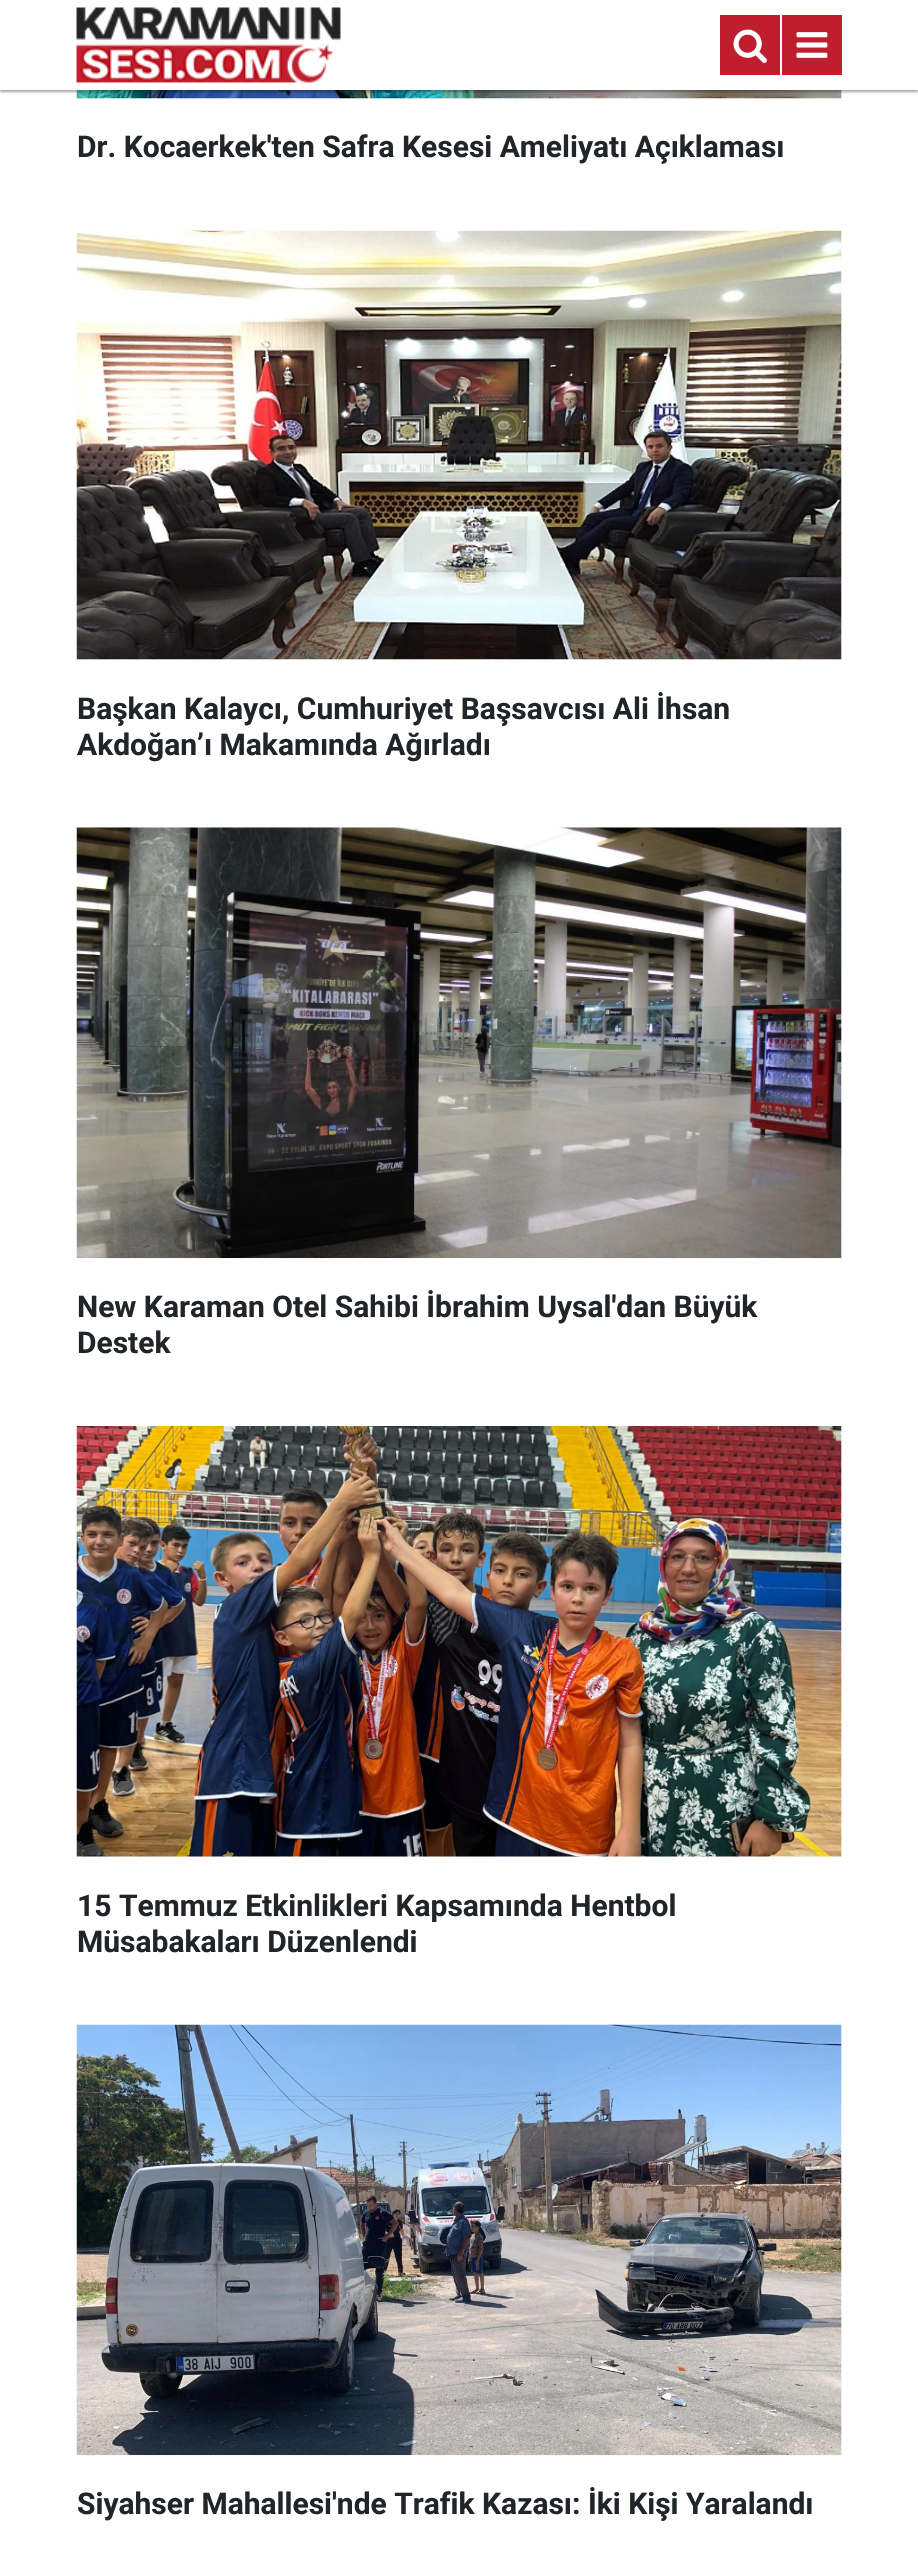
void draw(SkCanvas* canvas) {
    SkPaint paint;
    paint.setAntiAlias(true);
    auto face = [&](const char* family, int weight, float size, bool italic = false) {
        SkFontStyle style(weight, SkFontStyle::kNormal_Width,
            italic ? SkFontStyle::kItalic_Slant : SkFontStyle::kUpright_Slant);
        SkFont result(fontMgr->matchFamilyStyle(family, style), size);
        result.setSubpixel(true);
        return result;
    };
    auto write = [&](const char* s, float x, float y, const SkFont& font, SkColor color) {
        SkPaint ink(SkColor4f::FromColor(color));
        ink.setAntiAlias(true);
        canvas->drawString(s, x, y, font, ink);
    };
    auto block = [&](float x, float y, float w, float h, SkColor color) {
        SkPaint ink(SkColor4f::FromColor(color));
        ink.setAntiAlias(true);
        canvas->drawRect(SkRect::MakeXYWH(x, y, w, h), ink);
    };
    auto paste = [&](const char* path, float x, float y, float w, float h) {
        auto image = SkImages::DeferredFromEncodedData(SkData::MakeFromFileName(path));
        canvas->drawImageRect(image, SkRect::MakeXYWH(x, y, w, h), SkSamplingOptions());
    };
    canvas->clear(SK_ColorWHITE);
    block(77, 90, 765, 9, SkColorSetRGB(248, 248, 248));
    paste("pic4.png", 76, 90, 766, 9);
    paint.setColor(SkColorSetARGB(61, 0, 0, 0));
    paint.setMaskFilter(SkMaskFilter::MakeBlur(kNormal_SkBlurStyle, 1));
    canvas->drawRect(SkRect::MakeXYWH(0, 2, 918, 90), paint);
    paint.setMaskFilter(nullptr);
    paint.setColor(SkColorSetARGB(31, 0, 0, 0));
    paint.setMaskFilter(SkMaskFilter::MakeBlur(kNormal_SkBlurStyle, 1.5f));
    canvas->drawRect(SkRect::MakeXYWH(0, 2, 918, 90), paint);
    paint.setMaskFilter(nullptr);
    block(0, 0, 918, 90, SK_ColorWHITE);
    paste("pic1.png", 76, 7, 265, 76);
    block(720, 15, 60, 60, SkColorSetRGB(191, 30, 45));
    paste("pic2.png", 733, 29, 34, 34);
    block(782, 15, 60, 60, SkColorSetRGB(191, 30, 45));
    paste("pic3.png", 796, 32, 32, 26);
    auto kFont1 = face("Roboto", 700, 30);
    write("Dr. Kocaerkek'ten Safra Kesesi Ameliyatı Açıklaması", 77, 157, kFont1, SkColorSetRGB(33, 37, 41));
    block(77, 231, 765, 429, SkColorSetRGB(248, 248, 248));
    paste("pic5.png", 76, 230, 766, 430);
    write("Başkan Kalaycı, Cumhuriyet Başsavcısı Ali İhsan", 77, 719, kFont1, SkColorSetRGB(33, 37, 41));
    write("Akdoğan’ı Makamında Ağırladı", 77, 755, kFont1, SkColorSetRGB(33, 37, 41));
    block(77, 828, 765, 431, SkColorSetRGB(248, 248, 248));
    paste("pic6.png", 76, 827, 766, 431);
    write("New Karaman Otel Sahibi İbrahim Uysal'dan Büyük", 77, 1317, kFont1, SkColorSetRGB(33, 37, 41));
    write("Destek", 77, 1353, kFont1, SkColorSetRGB(33, 37, 41));
    block(77, 1427, 765, 430, SkColorSetRGB(248, 248, 248));
    paste("pic7.png", 76, 1426, 766, 431);
    write("15 Temmuz Etkinlikleri Kapsamında Hentbol", 77, 1916, kFont1, SkColorSetRGB(33, 37, 41));
    write("Müsabakaları Düzenlendi", 77, 1952, kFont1, SkColorSetRGB(33, 37, 41));
    block(77, 2025, 765, 431, SkColorSetRGB(248, 248, 248));
    paste("pic8.png", 76, 2024, 766, 431);
    write("Siyahser Mahallesi'nde Trafik Kazası: İki Kişi Yaralandı", 77, 2514, kFont1, SkColorSetRGB(33, 37, 41));
}
